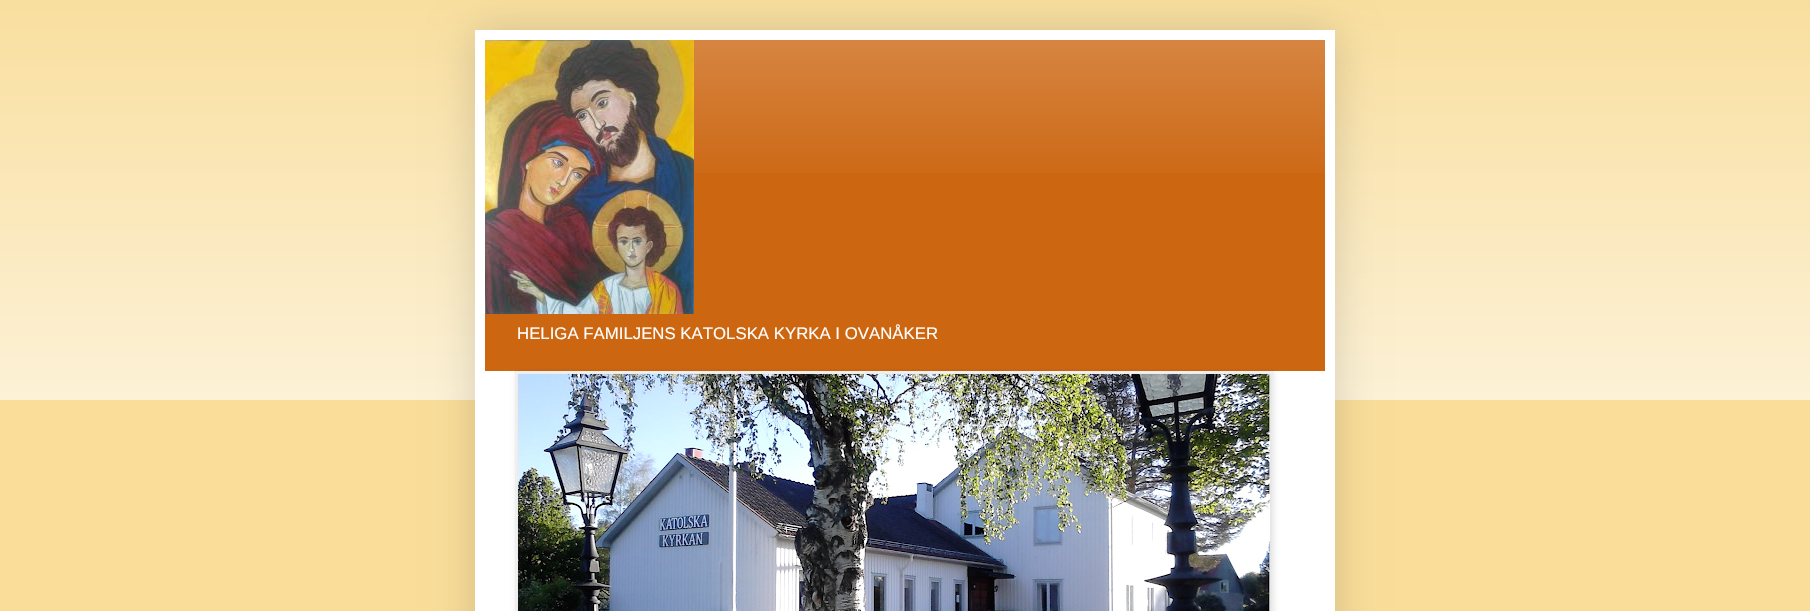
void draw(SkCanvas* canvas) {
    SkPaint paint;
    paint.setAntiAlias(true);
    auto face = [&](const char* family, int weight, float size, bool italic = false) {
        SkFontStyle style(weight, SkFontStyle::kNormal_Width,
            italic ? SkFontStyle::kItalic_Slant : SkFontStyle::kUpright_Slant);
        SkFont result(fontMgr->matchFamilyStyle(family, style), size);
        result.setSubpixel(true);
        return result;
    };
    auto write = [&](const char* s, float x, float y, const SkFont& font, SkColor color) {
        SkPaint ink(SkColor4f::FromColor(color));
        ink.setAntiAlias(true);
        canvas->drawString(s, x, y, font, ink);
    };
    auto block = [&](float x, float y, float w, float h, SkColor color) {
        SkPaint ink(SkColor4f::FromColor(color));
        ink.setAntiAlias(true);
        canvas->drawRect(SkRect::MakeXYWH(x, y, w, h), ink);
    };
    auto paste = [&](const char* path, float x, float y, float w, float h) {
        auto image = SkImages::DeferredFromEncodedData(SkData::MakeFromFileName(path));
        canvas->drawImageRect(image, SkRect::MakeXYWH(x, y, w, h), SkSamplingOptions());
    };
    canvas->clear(SkColorSetRGB(249, 221, 153));
    paste("pic1.png", 0, 0, 1810, 400);
    paint.setColor(SkColorSetARGB(38, 0, 0, 0));
    paint.setMaskFilter(SkMaskFilter::MakeBlur(kNormal_SkBlurStyle, 20));
    canvas->drawRect(SkRect::MakeXYWH(475, 30, 860, 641), paint);
    paint.setMaskFilter(nullptr);
    block(475, 30, 860, 581, SK_ColorWHITE);
    block(485, 40, 840, 331, SkColorSetRGB(204, 102, 17));
    paste("pic2.png", 694, 40, 631, 133);
    paste("pic3.png", 485, 40, 209, 274);
    auto kFont1 = face("Liberation Sans", 400, 16.8f);
    write("HELIGA FAMILJENS KATOLSKA KYRKA I OVANÅKER", 517, 339, kFont1, SK_ColorWHITE);
    paint.setColor(SkColorSetARGB(26, 0, 0, 0));
    paint.setMaskFilter(SkMaskFilter::MakeBlur(kNormal_SkBlurStyle, 2.5f));
    canvas->drawRect(SkRect::MakeXYWH(516, 372, 758, 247), paint);
    paint.setMaskFilter(nullptr);
    paint.setStyle(SkPaint::kStroke_Style);
    paint.setStrokeWidth(1);
    paint.setColor(SkColorSetRGB(238, 238, 238));
    canvas->drawRect(SkRect::MakeXYWH(515.5f, 371.5f, 757, 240), paint);
    paste("pic4.png", 518, 374, 752, 237);
}
